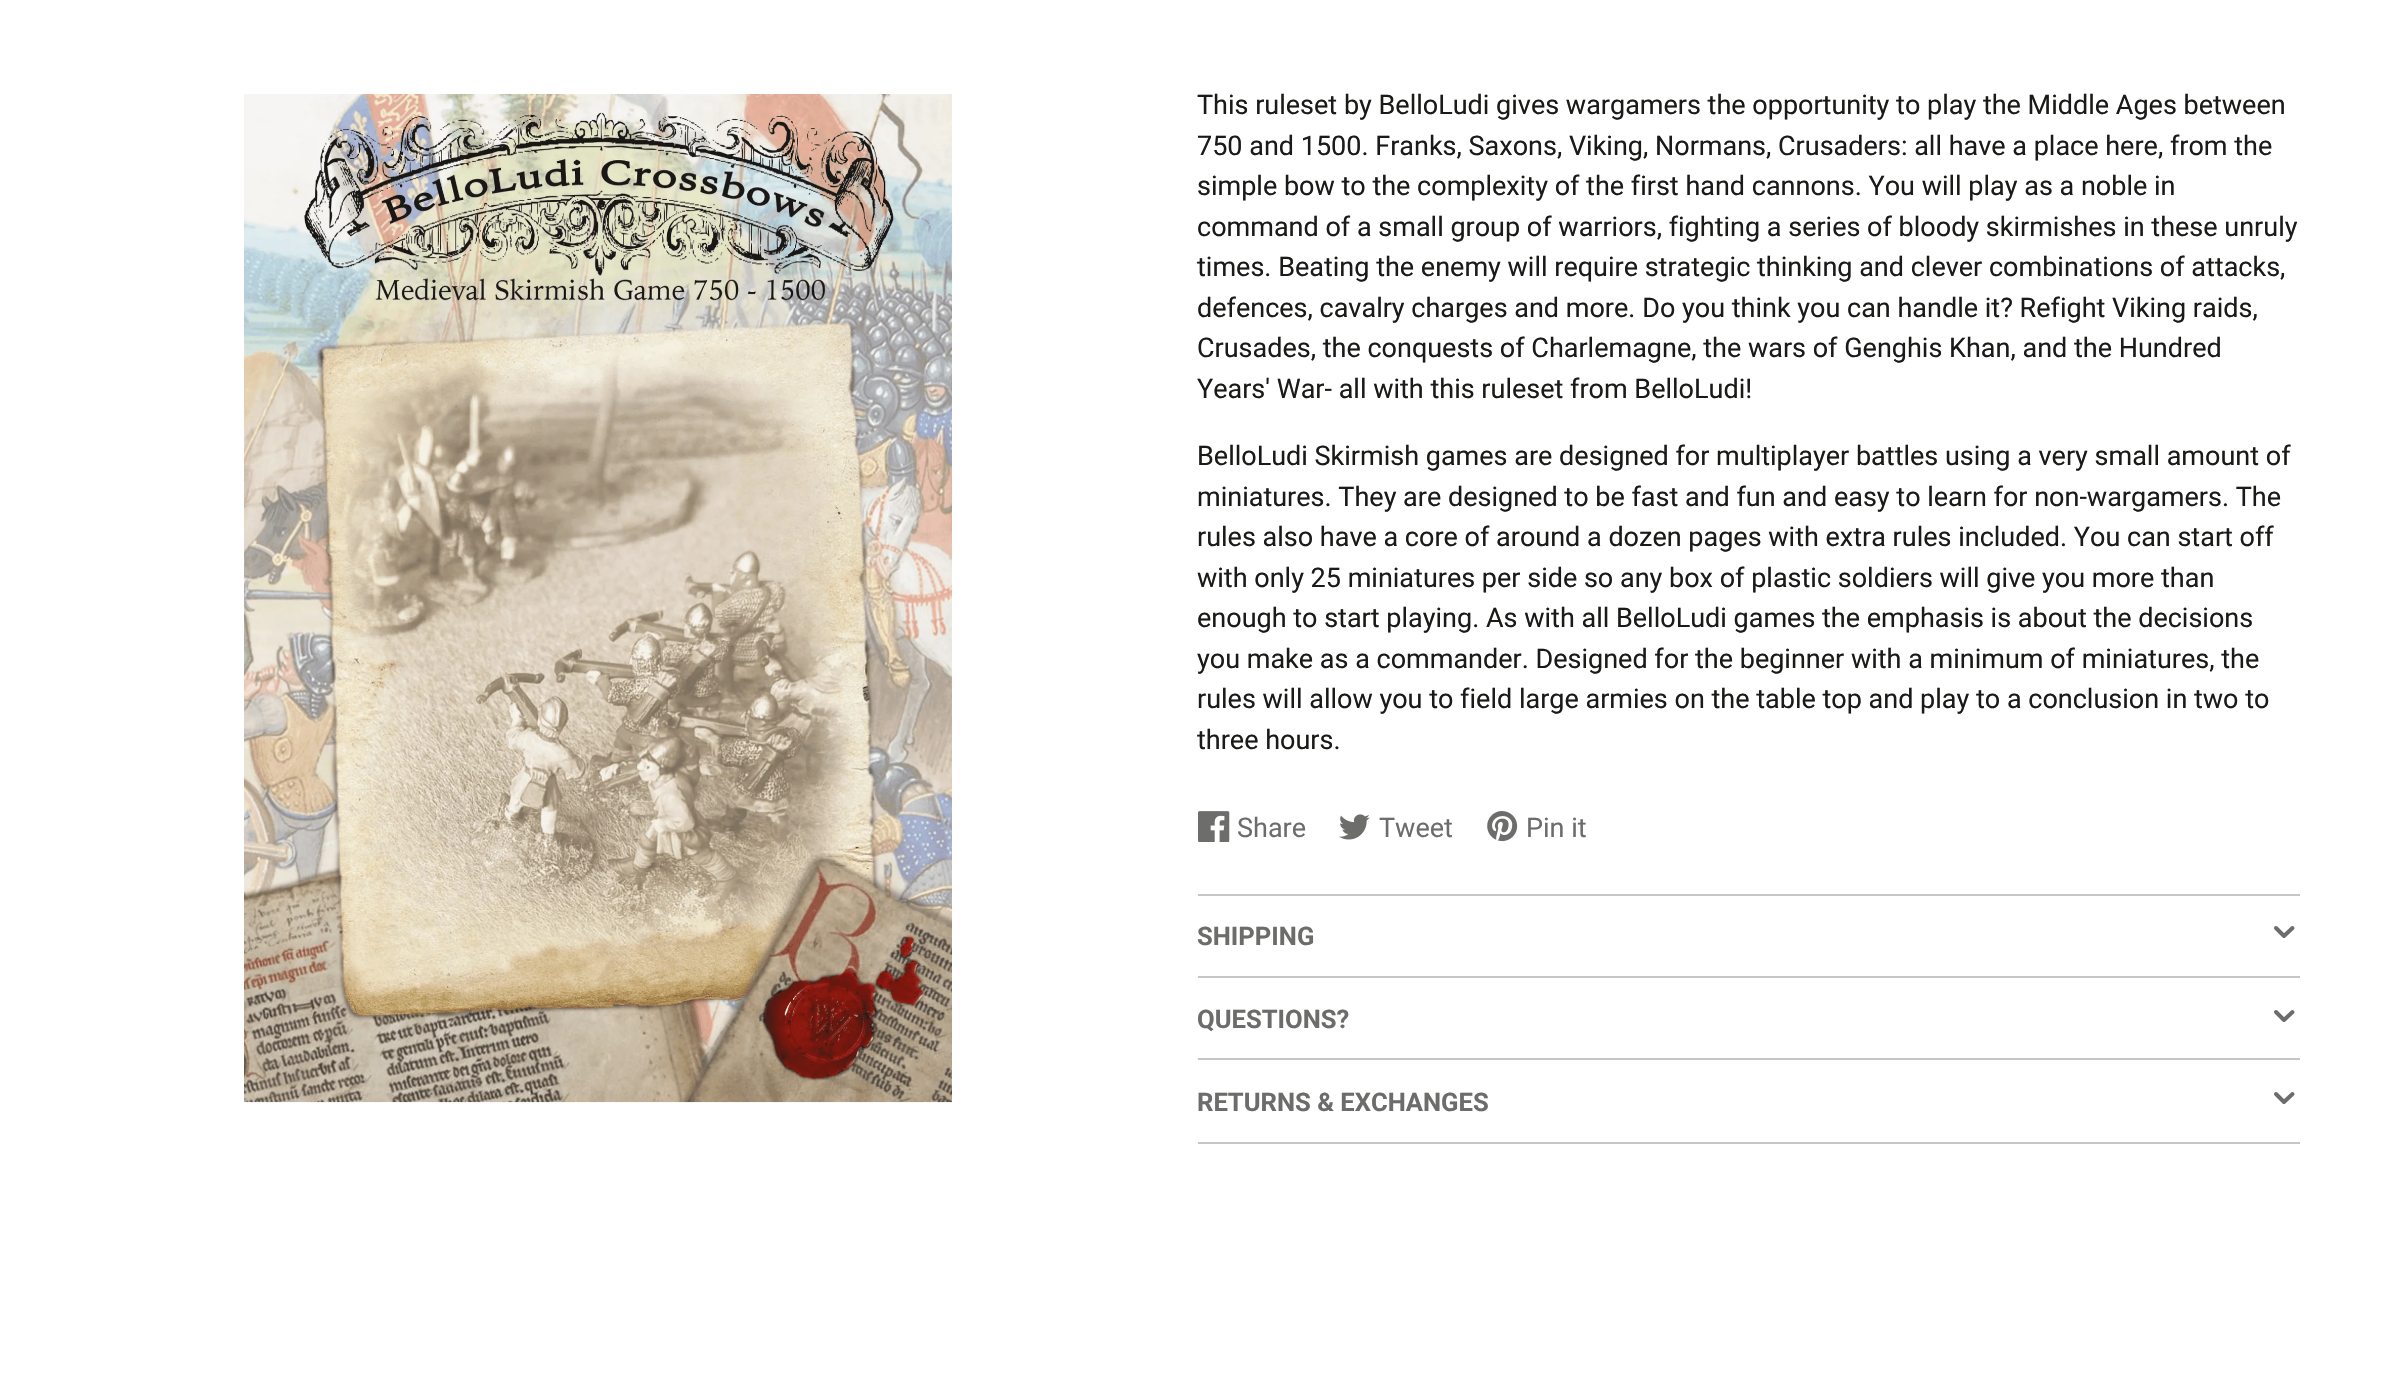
void draw(SkCanvas* canvas) {
    SkPaint paint;
    paint.setAntiAlias(true);
    auto face = [&](const char* family, int weight, float size, bool italic = false) {
        SkFontStyle style(weight, SkFontStyle::kNormal_Width,
            italic ? SkFontStyle::kItalic_Slant : SkFontStyle::kUpright_Slant);
        SkFont result(fontMgr->matchFamilyStyle(family, style), size);
        result.setSubpixel(true);
        return result;
    };
    auto write = [&](const char* s, float x, float y, const SkFont& font, SkColor color) {
        SkPaint ink(SkColor4f::FromColor(color));
        ink.setAntiAlias(true);
        canvas->drawString(s, x, y, font, ink);
    };
    auto block = [&](float x, float y, float w, float h, SkColor color) {
        SkPaint ink(SkColor4f::FromColor(color));
        ink.setAntiAlias(true);
        canvas->drawRect(SkRect::MakeXYWH(x, y, w, h), ink);
    };
    auto paste = [&](const char* path, float x, float y, float w, float h) {
        auto image = SkImages::DeferredFromEncodedData(SkData::MakeFromFileName(path));
        canvas->drawImageRect(image, SkRect::MakeXYWH(x, y, w, h), SkSamplingOptions());
    };
    canvas->clear(SK_ColorWHITE);
    paste("pic1.png", 244, 94, 708, 1009);
    auto kFont1 = face("Roboto", 400, 27);
    write("This ruleset by BelloLudi gives wargamers the opportunity to play the Middle Ages between", 1197, 114, kFont1, SkColorSetRGB(26, 27, 24));
    write("750 and 1500. Franks, Saxons, Viking, Normans, Crusaders: all have a place here, from the", 1197, 155, kFont1, SkColorSetRGB(26, 27, 24));
    write("simple bow to the complexity of the first hand cannons. You will play as a noble in", 1197, 195, kFont1, SkColorSetRGB(26, 27, 24));
    write("command of a small group of warriors, fighting a series of bloody skirmishes in these unruly", 1197, 236, kFont1, SkColorSetRGB(26, 27, 24));
    write("times. Beating the enemy will require strategic thinking and clever combinations of attacks,", 1197, 276, kFont1, SkColorSetRGB(26, 27, 24));
    write("defences, cavalry charges and more. Do you think you can handle it? Refight Viking raids,", 1197, 317, kFont1, SkColorSetRGB(26, 27, 24));
    write("Crusades, the conquests of Charlemagne, the wars of Genghis Khan, and the Hundred", 1197, 357, kFont1, SkColorSetRGB(26, 27, 24));
    write("Years' War- all with this ruleset from BelloLudi!", 1197, 398, kFont1, SkColorSetRGB(26, 27, 24));
    write("BelloLudi Skirmish games are designed for multiplayer battles using a very small amount of", 1197, 465, kFont1, SkColorSetRGB(26, 27, 24));
    write("miniatures. They are designed to be fast and fun and easy to learn for non-wargamers. The", 1197, 506, kFont1, SkColorSetRGB(26, 27, 24));
    write("rules also have a core of around a dozen pages with extra rules included. You can start off", 1197, 546, kFont1, SkColorSetRGB(26, 27, 24));
    write("with only 25 miniatures per side so any box of plastic soldiers will give you more than", 1197, 587, kFont1, SkColorSetRGB(26, 27, 24));
    write("enough to start playing. As with all BelloLudi games the emphasis is about the decisions", 1197, 627, kFont1, SkColorSetRGB(26, 27, 24));
    write("you make as a commander. Designed for the beginner with a minimum of miniatures, the", 1197, 668, kFont1, SkColorSetRGB(26, 27, 24));
    write("rules will allow you to field large armies on the table top and play to a conclusion in two to", 1197, 708, kFont1, SkColorSetRGB(26, 27, 24));
    write("three hours.", 1197, 749, kFont1, SkColorSetRGB(26, 27, 24));
    paste("pic2.png", 1198, 811, 32, 31);
    write("Share", 1237, 837, kFont1, SkColorSetRGB(108, 109, 107));
    paste("pic3.png", 1339, 814, 31, 26);
    write("Tweet", 1379, 837, kFont1, SkColorSetRGB(108, 109, 107));
    paste("pic4.png", 1487, 811, 31, 31);
    write("Pin it", 1526, 837, kFont1, SkColorSetRGB(108, 109, 107));
    block(1198, 894, 1102, 2, SkColorSetRGB(198, 198, 197));
    auto kFont2 = face("Roboto", 700, 25.6f);
    write("SHIPPING", 1197, 945, kFont2, SkColorSetRGB(108, 109, 107));
    paint.setStyle(SkPaint::kStroke_Style);
    paint.setStrokeWidth(4);
    paint.setStrokeCap(SkPaint::kRound_Cap);
    paint.setStrokeJoin(SkPaint::kRound_Join);
    paint.setColor(SkColorSetRGB(108, 109, 107));
    canvas->drawPath(SkPathBuilder().moveTo(2276, 928).lineTo(2284, 936).lineTo(2292.5f, 928).detach(), paint);
    block(1198, 976, 1102, 2, SkColorSetRGB(198, 198, 197));
    write("QUESTIONS?", 1197, 1028, kFont2, SkColorSetRGB(108, 109, 107));
    canvas->drawPath(SkPathBuilder().moveTo(2276, 1012).lineTo(2284, 1020).lineTo(2292.5f, 1012).detach(), paint);
    block(1198, 1058, 1102, 2, SkColorSetRGB(198, 198, 197));
    write("RETURNS & EXCHANGES", 1197, 1111, kFont2, SkColorSetRGB(108, 109, 107));
    canvas->drawPath(SkPathBuilder().moveTo(2276, 1094).lineTo(2284, 1102).lineTo(2292.5f, 1094).detach(), paint);
    block(1198, 1142, 1102, 2, SkColorSetRGB(198, 198, 197));
}
